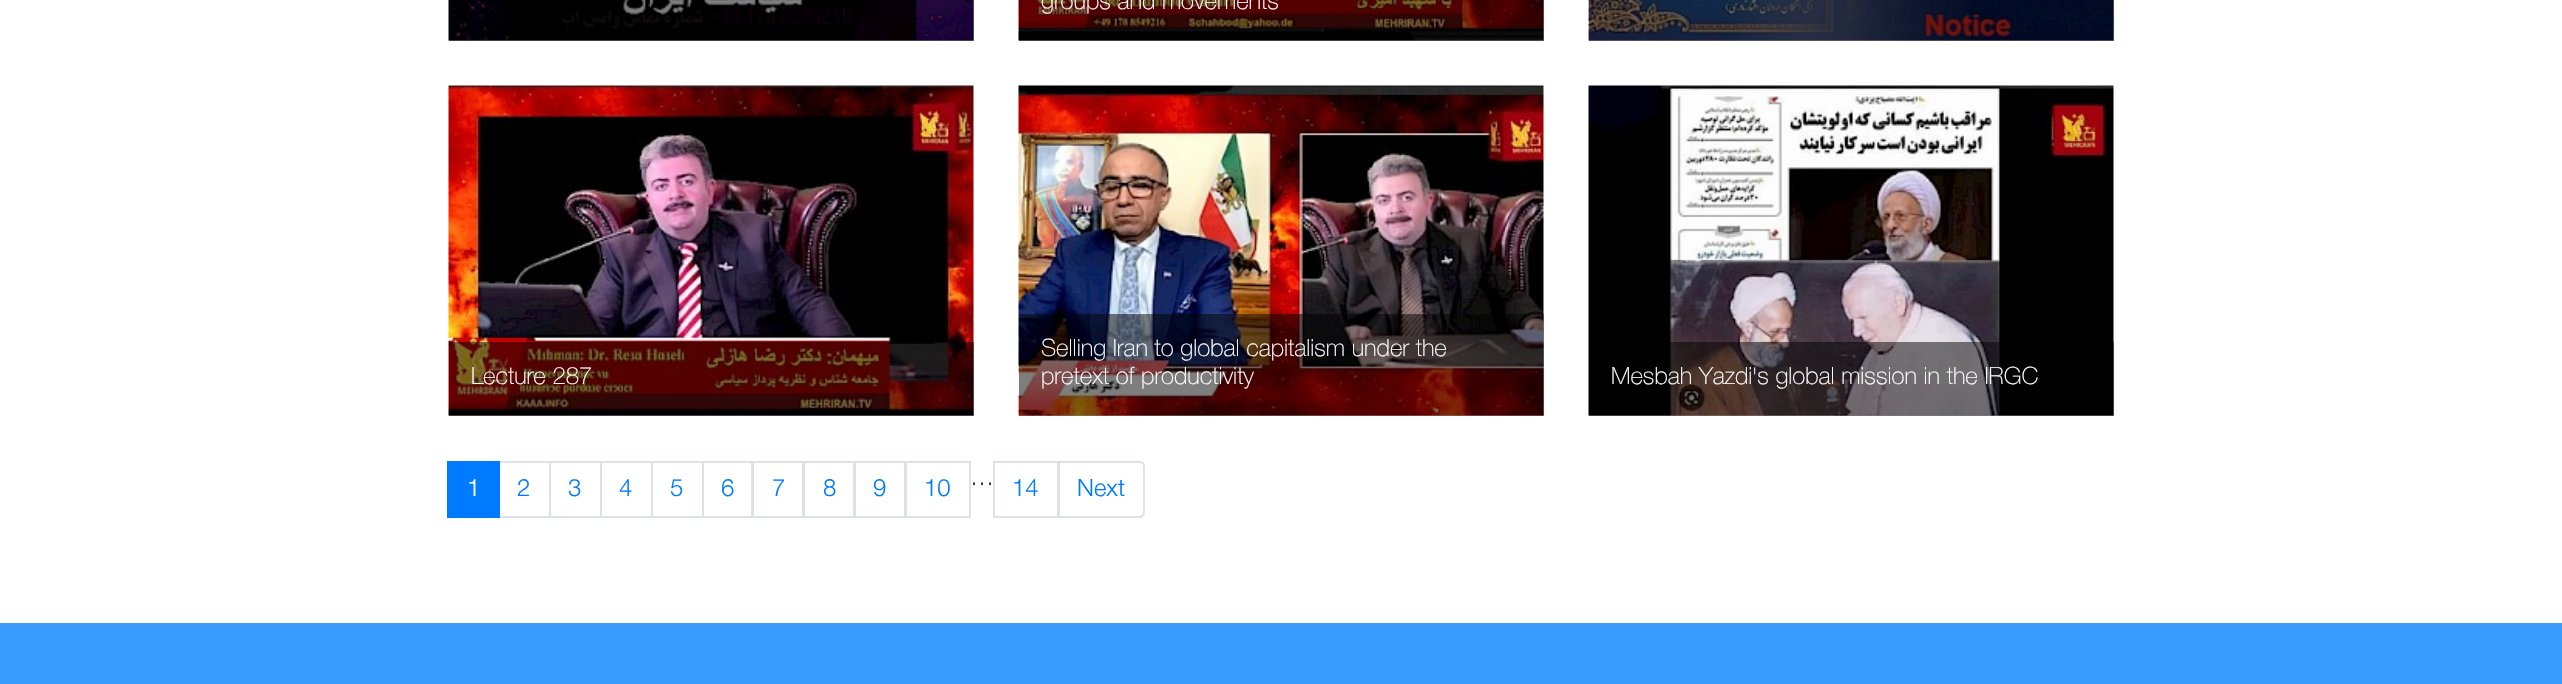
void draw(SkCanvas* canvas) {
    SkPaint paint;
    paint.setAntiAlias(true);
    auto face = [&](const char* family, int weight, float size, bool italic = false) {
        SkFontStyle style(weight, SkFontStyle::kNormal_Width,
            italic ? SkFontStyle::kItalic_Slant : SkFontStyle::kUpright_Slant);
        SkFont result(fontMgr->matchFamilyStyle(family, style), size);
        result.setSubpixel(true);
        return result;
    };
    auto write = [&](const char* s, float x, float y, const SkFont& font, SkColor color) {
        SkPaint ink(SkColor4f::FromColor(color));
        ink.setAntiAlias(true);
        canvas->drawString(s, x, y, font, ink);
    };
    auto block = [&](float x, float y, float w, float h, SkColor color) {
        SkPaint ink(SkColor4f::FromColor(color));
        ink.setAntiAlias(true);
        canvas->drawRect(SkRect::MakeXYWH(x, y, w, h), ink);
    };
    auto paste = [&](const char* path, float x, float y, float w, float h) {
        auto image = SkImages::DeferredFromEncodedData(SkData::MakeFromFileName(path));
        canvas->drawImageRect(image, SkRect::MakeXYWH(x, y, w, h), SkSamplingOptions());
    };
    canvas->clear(SK_ColorWHITE);
    block(1589, 0, 525, 41, SkColorSetRGB(128, 128, 128));
    block(1019, 0, 525, 41, SkColorSetRGB(128, 128, 128));
    block(449, 0, 525, 41, SkColorSetRGB(128, 128, 128));
    paste("pic1.png", 448, 0, 526, 41);
    paste("pic2.png", 1018, 0, 526, 41);
    auto kFont1 = face("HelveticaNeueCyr", 100, 24);
    write("groups and movements", 1041, 9, kFont1, SK_ColorWHITE);
    paste("pic3.png", 1588, 0, 526, 41);
    paste("pic4.png", 448, 85, 526, 331);
    block(449, 342, 525, 74, SkColorSetARGB(128, 0, 0, 0));
    write("Lecture 287", 471, 384, kFont1, SK_ColorWHITE);
    paste("pic5.png", 1018, 85, 526, 331);
    block(1019, 314, 525, 102, SkColorSetARGB(128, 0, 0, 0));
    write("Selling Iran to global capitalism under the", 1041, 356, kFont1, SK_ColorWHITE);
    write("pretext of productivity", 1041, 384, kFont1, SK_ColorWHITE);
    paste("pic6.png", 1588, 85, 526, 331);
    block(1589, 342, 525, 74, SkColorSetARGB(128, 0, 0, 0));
    write("Mesbah Yazdi's global mission in the IRGC", 1611, 384, kFont1, SK_ColorWHITE);
    paint.setStyle(SkPaint::kStroke_Style);
    paint.setStrokeWidth(2);
    paint.setColor(SkColorSetRGB(222, 226, 230));
    canvas->drawRect(SkRect::MakeXYWH(499, 462, 51, 55), paint);
    block(447, 461, 53, 57, SkColorSetRGB(0, 123, 255));
    auto kFont2 = face("HelveticaNeueCyr", 300, 24);
    write("1", 467, 496, kFont2, SK_ColorWHITE);
    write("2", 517, 496, kFont2, SkColorSetRGB(0, 123, 255));
    canvas->drawRect(SkRect::MakeXYWH(550, 462, 51, 55), paint);
    write("3", 568, 496, kFont2, SkColorSetRGB(0, 123, 255));
    canvas->drawRect(SkRect::MakeXYWH(601, 462, 51, 55), paint);
    write("4", 619, 496, kFont2, SkColorSetRGB(0, 123, 255));
    canvas->drawRect(SkRect::MakeXYWH(652, 462, 51, 55), paint);
    write("5", 670, 496, kFont2, SkColorSetRGB(0, 123, 255));
    canvas->drawRect(SkRect::MakeXYWH(703, 462, 49, 55), paint);
    write("6", 721, 496, kFont2, SkColorSetRGB(0, 123, 255));
    canvas->drawRect(SkRect::MakeXYWH(753, 462, 50, 55), paint);
    write("7", 772, 496, kFont2, SkColorSetRGB(0, 123, 255));
    canvas->drawRect(SkRect::MakeXYWH(804, 462, 50, 55), paint);
    write("8", 823, 496, kFont2, SkColorSetRGB(0, 123, 255));
    canvas->drawRect(SkRect::MakeXYWH(855, 462, 50, 55), paint);
    write("9", 873, 496, kFont2, SkColorSetRGB(0, 123, 255));
    canvas->drawRect(SkRect::MakeXYWH(906, 462, 64, 55), paint);
    write("10", 924, 496, kFont2, SkColorSetRGB(0, 123, 255));
    write("…", 970, 485, kFont2, SkColorSetRGB(33, 37, 41));
    canvas->drawRect(SkRect::MakeXYWH(994, 462, 64, 55), paint);
    write("14", 1012, 496, kFont2, SkColorSetRGB(0, 123, 255));
    paint.setStyle(SkPaint::kFill_Style);
    paint.setColor(SK_ColorWHITE);
    canvas->drawPath(SkPathBuilder().moveTo(1059, 462).lineTo(1139, 462).cubicTo(1142, 462, 1144, 464, 1144, 467).lineTo(1144, 512).cubicTo(1144, 515, 1142, 517, 1139, 517).lineTo(1059, 517).close().detach(), paint);
    paint.setStyle(SkPaint::kStroke_Style);
    paint.setColor(SkColorSetRGB(222, 226, 230));
    canvas->drawPath(SkPathBuilder().moveTo(1059, 462).lineTo(1139, 462).cubicTo(1142, 462, 1144, 464, 1144, 467).lineTo(1144, 512).cubicTo(1144, 515, 1142, 517, 1139, 517).lineTo(1059, 517).close().detach(), paint);
    write("Next", 1077, 496, kFont2, SkColorSetRGB(0, 123, 255));
    block(0, 623, 2562, 61, SkColorSetRGB(59, 156, 255));
}
